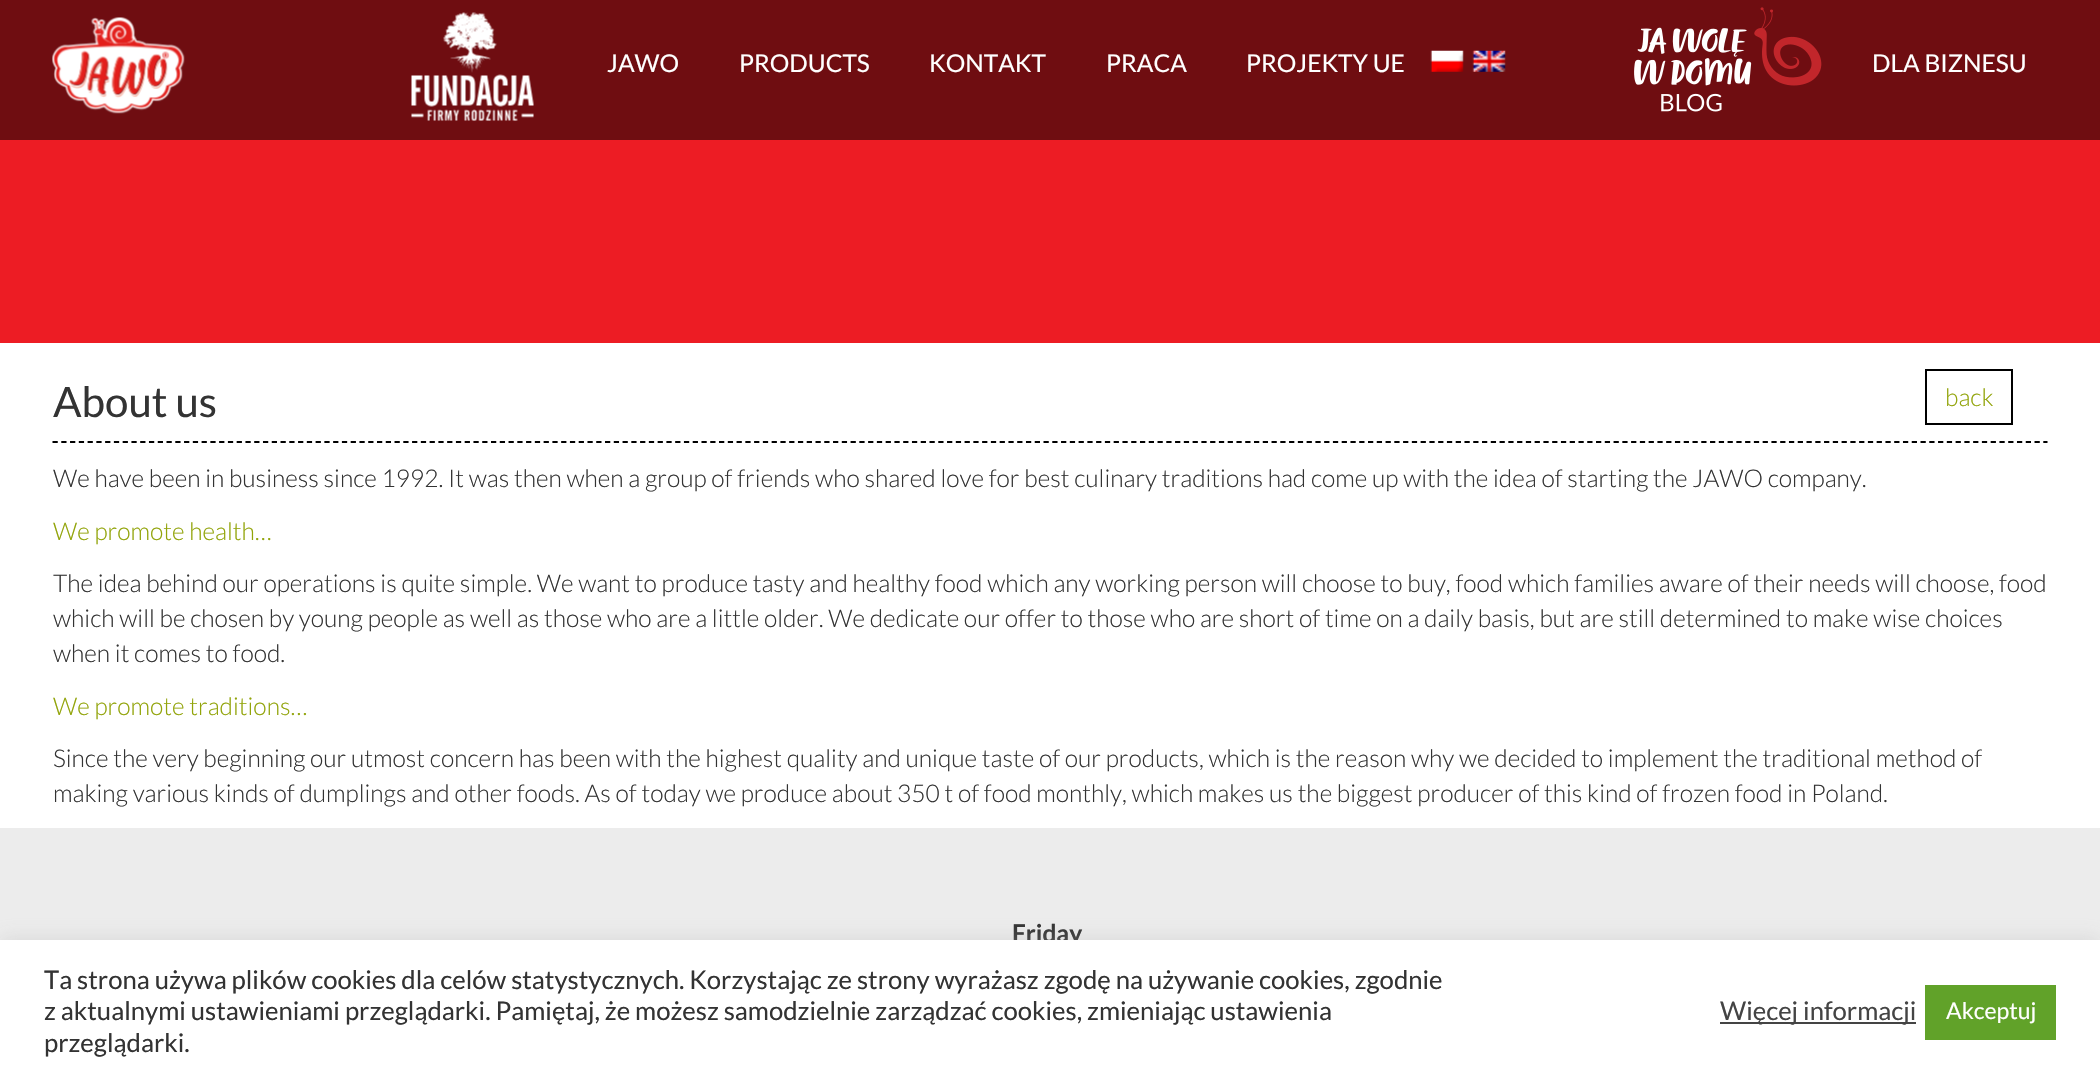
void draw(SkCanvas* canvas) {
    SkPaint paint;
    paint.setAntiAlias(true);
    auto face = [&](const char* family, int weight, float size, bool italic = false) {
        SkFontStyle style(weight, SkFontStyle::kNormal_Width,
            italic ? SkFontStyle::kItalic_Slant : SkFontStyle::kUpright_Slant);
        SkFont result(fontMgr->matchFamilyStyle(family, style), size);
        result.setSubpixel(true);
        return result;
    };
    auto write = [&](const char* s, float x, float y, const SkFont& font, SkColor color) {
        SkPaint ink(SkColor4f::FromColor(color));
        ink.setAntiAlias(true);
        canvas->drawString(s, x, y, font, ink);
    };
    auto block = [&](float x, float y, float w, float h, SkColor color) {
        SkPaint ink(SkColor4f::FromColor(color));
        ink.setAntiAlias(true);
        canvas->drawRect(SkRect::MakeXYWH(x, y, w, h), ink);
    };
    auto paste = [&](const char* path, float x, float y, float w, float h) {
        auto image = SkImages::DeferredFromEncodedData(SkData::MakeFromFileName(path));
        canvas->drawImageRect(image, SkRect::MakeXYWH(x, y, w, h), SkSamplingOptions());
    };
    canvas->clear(SK_ColorWHITE);
    block(0, 0, 2100, 140, SkColorSetRGB(111, 13, 17));
    paste("pic1.png", 52, 17, 133, 97);
    paste("pic2.png", 411, 12, 123, 109);
    auto kFont1 = face("Lato", 400, 24.5f);
    write("JAWO", 607, 72, kFont1, SK_ColorWHITE);
    write("PRODUCTS", 739, 72, kFont1, SK_ColorWHITE);
    write("KONTAKT", 929, 72, kFont1, SK_ColorWHITE);
    write("PRACA", 1106, 72, kFont1, SK_ColorWHITE);
    write("PROJEKTY UE", 1246, 72, kFont1, SK_ColorWHITE);
    paste("pic3.png", 1430, 50, 34, 22);
    paste("pic4.png", 1472, 50, 34, 22);
    paste("pic5.png", 1634, 7, 188, 105);
    write("DLA BIZNESU", 1872, 72, kFont1, SK_ColorWHITE);
    block(0, 140, 2100, 203, SkColorSetRGB(237, 28, 36));
    paint.setStyle(SkPaint::kStroke_Style);
    paint.setStrokeWidth(1.8f);
    paint.setColor(SK_ColorBLACK);
    paint.setPathEffect(SkDashPathEffect::Make({{5.25f, 3.52f}}, 0));
    canvas->drawPath(SkPathBuilder().moveTo(52.5f, 442).lineTo(2047.5f, 442).detach(), paint);
    paint.setPathEffect(nullptr);
    auto kFont2 = face("Lato", 400, 42);
    write("About us", 53, 417, kFont2, SkColorSetRGB(51, 51, 51));
    paint.setStrokeWidth(2);
    canvas->drawRect(SkRect::MakeXYWH(1926, 370, 86, 54), paint);
    auto kFont3 = face("Lato", 300, 24.5f);
    write("back", 1945, 406, kFont3, SkColorSetRGB(146, 164, 10));
    write("We have been in business since 1992. It was then when a group of friends who shared love for best culinary traditions had come up with the idea of starting the JAWO company.", 53, 487, kFont3, SkColorSetRGB(51, 51, 51));
    write("We promote health…", 53, 540, kFont3, SkColorSetRGB(146, 164, 10));
    write("The idea behind our operations is quite simple. We want to produce tasty and healthy food which any working person will choose to buy, food which families aware of their needs will choose, food", 53, 592, kFont3, SkColorSetRGB(51, 51, 51));
    write("which will be chosen by young people as well as those who are a little older. We dedicate our offer to those who are short of time on a daily basis, but are still determined to make wise choices", 53, 627, kFont3, SkColorSetRGB(51, 51, 51));
    write("when it comes to food.", 53, 662, kFont3, SkColorSetRGB(51, 51, 51));
    write("We promote traditions…", 53, 715, kFont3, SkColorSetRGB(146, 164, 10));
    write("Since the very beginning our utmost concern has been with the highest quality and unique taste of our products, which is the reason why we decided to implement the traditional method of", 53, 767, kFont3, SkColorSetRGB(51, 51, 51));
    write("making various kinds of dumplings and other foods. As of today we produce about 350 t of food monthly, which makes us the biggest producer of this kind of frozen food in Poland.", 53, 802, kFont3, SkColorSetRGB(51, 51, 51));
    block(0, 828, 2100, 112, SkColorSetRGB(236, 236, 236));
    auto kFont4 = face("Lato", 700, 24.5f);
    write("Friday", 1012, 942, kFont4, SkColorSetRGB(51, 51, 51));
    paint.setStyle(SkPaint::kFill_Style);
    paint.setColor(SkColorSetARGB(77, 172, 171, 171));
    paint.setMaskFilter(SkMaskFilter::MakeBlur(kNormal_SkBlurStyle, 9));
    canvas->drawRect(SkRect::MakeXYWH(0, 938, 2100, 144), paint);
    paint.setMaskFilter(nullptr);
    block(0, 940, 2100, 143, SK_ColorWHITE);
    auto kFont5 = face("Lato", 400, 25.67f);
    write("Ta strona używa plików cookies dla celów statystycznych. Korzystając ze strony wyrażasz zgodę na używanie cookies, zgodnie", 44, 989, kFont5, SkColorSetRGB(51, 51, 51));
    write("z aktualnymi ustawieniami przeglądarki. Pamiętaj, że możesz samodzielnie zarządzać cookies, zmieniając ustawienia", 44, 1020, kFont5, SkColorSetRGB(51, 51, 51));
    write("przeglądarki.", 44, 1052, kFont5, SkColorSetRGB(51, 51, 51));
    block(1720, 1022, 196, 2, SkColorSetRGB(68, 68, 68));
    write("Więcej informacji", 1720, 1020, kFont5, SkColorSetRGB(68, 68, 68));
    block(1925, 985, 131, 55, SkColorSetRGB(97, 162, 41));
    auto kFont6 = face("Lato", 400, 23);
    write("Akceptuj", 1946, 1019, kFont6, SK_ColorWHITE);
}
